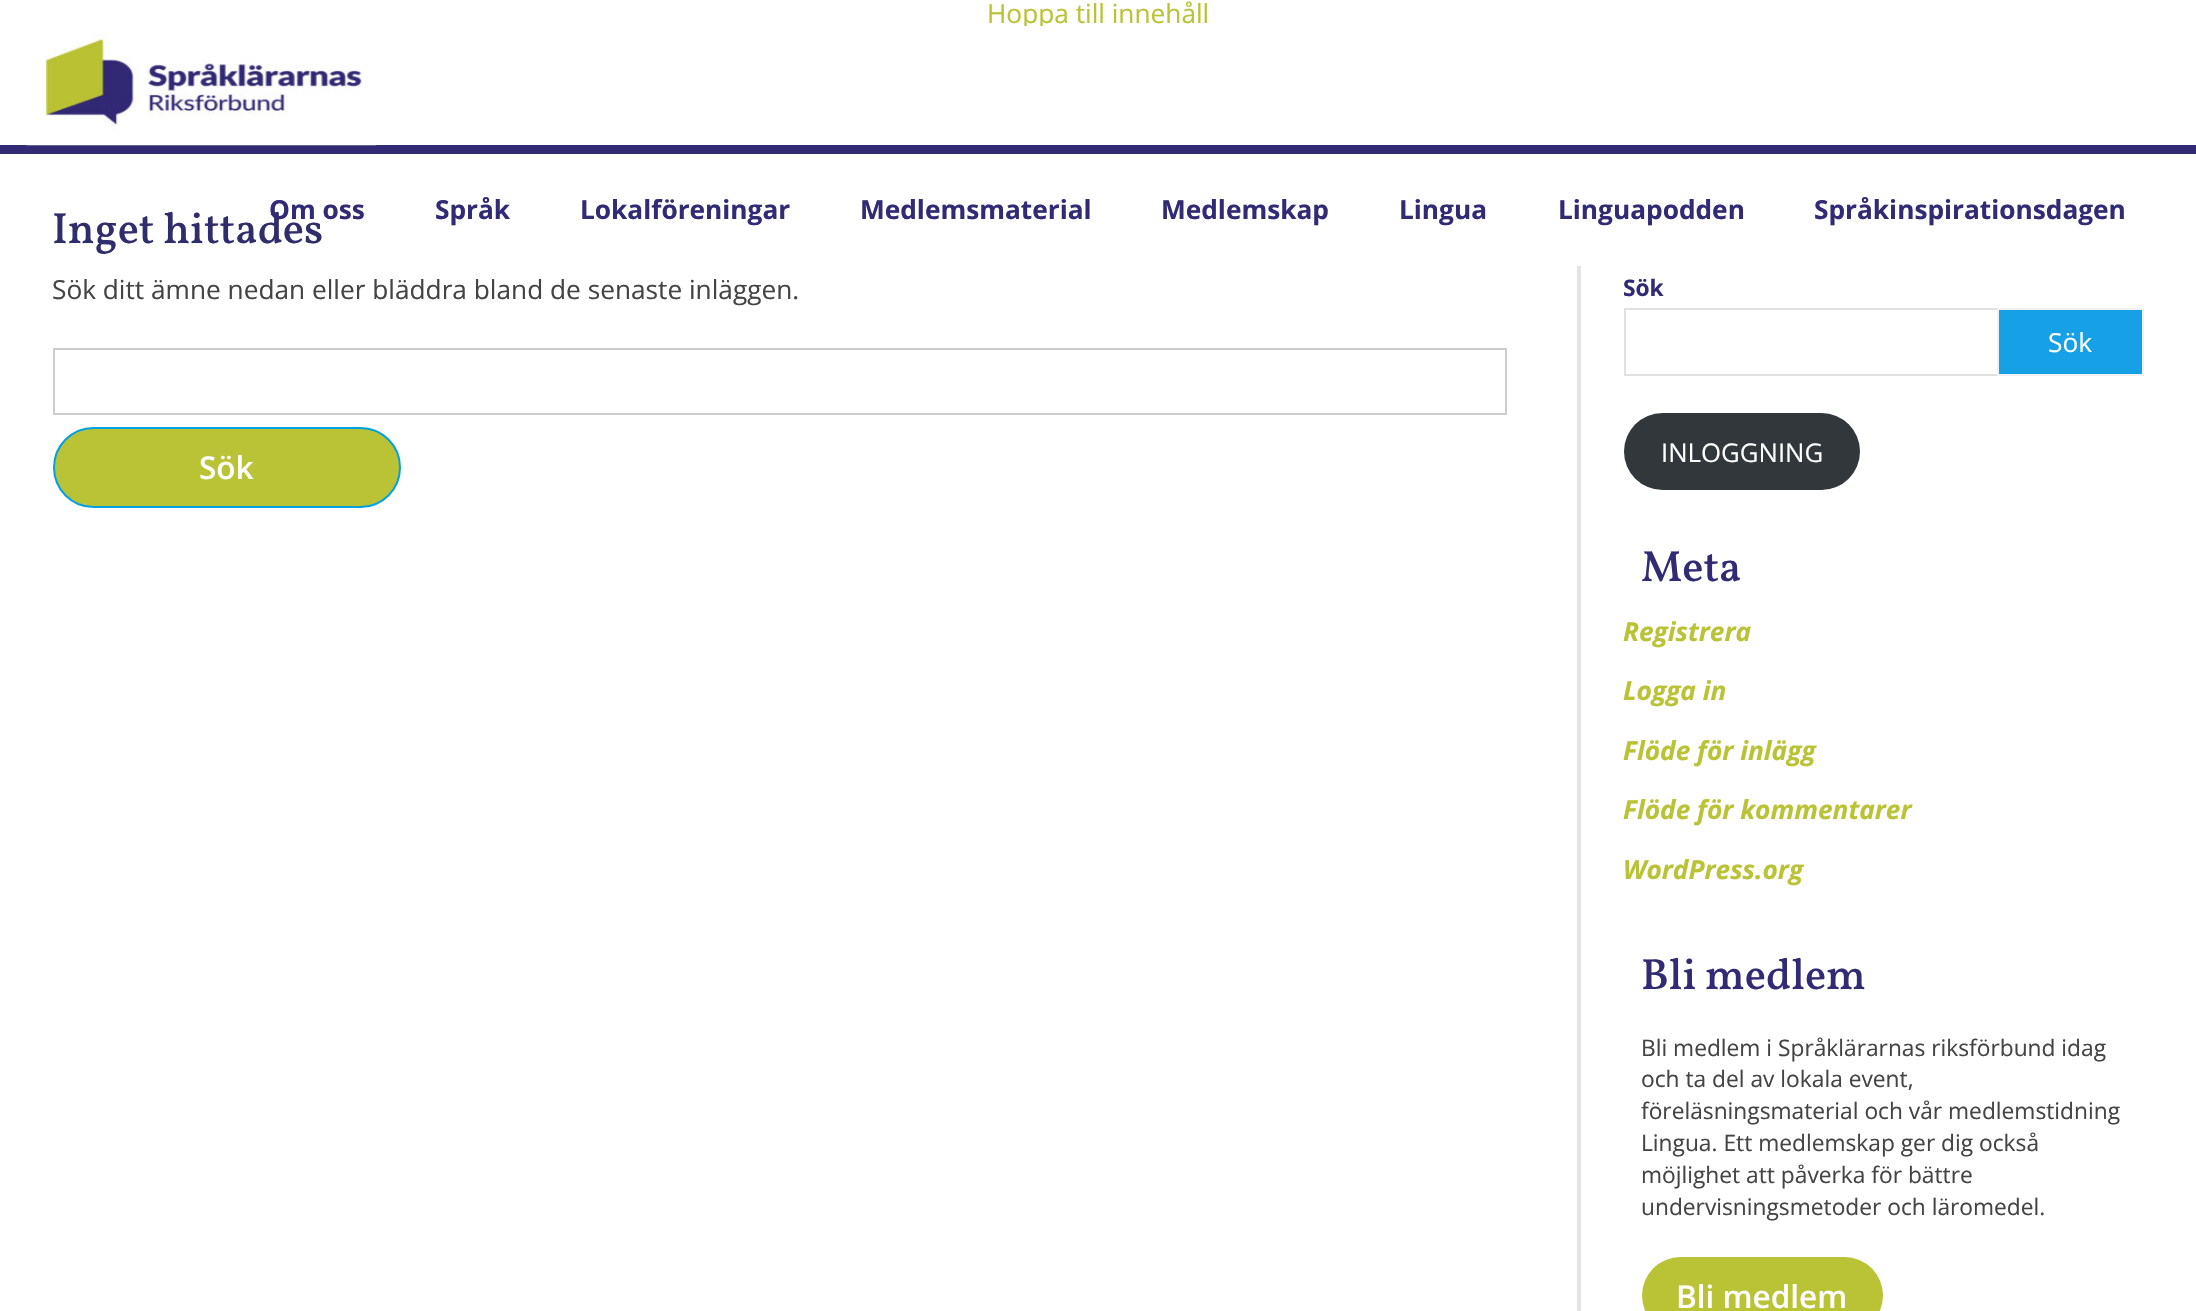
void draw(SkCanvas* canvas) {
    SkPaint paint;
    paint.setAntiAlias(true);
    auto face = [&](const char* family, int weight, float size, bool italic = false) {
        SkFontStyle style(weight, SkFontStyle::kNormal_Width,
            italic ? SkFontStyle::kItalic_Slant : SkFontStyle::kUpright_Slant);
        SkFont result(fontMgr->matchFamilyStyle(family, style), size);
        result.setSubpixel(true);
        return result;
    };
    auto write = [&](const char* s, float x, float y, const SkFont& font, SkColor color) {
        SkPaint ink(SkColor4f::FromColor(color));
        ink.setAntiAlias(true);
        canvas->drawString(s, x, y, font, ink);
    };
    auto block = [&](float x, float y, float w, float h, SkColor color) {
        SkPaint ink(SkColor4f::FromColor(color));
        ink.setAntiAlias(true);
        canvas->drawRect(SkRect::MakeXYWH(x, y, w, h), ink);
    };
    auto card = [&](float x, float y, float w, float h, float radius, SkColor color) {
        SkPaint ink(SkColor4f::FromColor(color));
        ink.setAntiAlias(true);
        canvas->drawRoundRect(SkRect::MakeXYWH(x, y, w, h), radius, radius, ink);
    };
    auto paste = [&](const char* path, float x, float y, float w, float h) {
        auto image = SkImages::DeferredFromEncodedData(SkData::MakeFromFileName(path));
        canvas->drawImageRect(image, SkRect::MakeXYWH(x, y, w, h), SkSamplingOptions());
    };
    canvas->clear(SK_ColorWHITE);
    auto kFont1 = face("Open Sans", 400, 26.25f);
    write("Hoppa till innehåll", 987, 23, kFont1, SkColorSetRGB(186, 194, 53));
    block(1024, 26, 19, 4, SK_ColorWHITE);
    block(0, 145, 2196, 9, SkColorSetRGB(49, 42, 116));
    paste("pic1.png", 26, 34, 351, 112);
    auto kFont2 = face("Vollkorn", 500, 43.75f);
    write("Inget hittades", 52, 243, kFont2, SkColorSetRGB(48, 45, 109));
    auto kFont3 = face("Open Sans", 700, 26.25f);
    write("Om oss", 269, 219, kFont3, SkColorSetRGB(49, 42, 116));
    write("Språk", 435, 219, kFont3, SkColorSetRGB(49, 42, 116));
    write("Lokalföreningar", 580, 219, kFont3, SkColorSetRGB(49, 42, 116));
    write("Medlemsmaterial", 860, 219, kFont3, SkColorSetRGB(49, 42, 116));
    write("Medlemskap", 1161, 219, kFont3, SkColorSetRGB(49, 42, 116));
    write("Lingua", 1399, 219, kFont3, SkColorSetRGB(49, 42, 116));
    write("Linguapodden", 1558, 219, kFont3, SkColorSetRGB(49, 42, 116));
    write("Språkinspirationsdagen", 1814, 219, kFont3, SkColorSetRGB(49, 42, 116));
    write("Sök ditt ämne nedan eller bläddra bland de senaste inläggen.", 52, 299, kFont1, SkColorSetRGB(68, 68, 68));
    paint.setStyle(SkPaint::kStroke_Style);
    paint.setStrokeWidth(2);
    paint.setColor(SkColorSetRGB(204, 204, 204));
    canvas->drawRect(SkRect::MakeXYWH(54, 349, 1452, 65), paint);
    paint.setStyle(SkPaint::kFill_Style);
    paint.setColor(SkColorSetRGB(186, 194, 53));
    canvas->drawRoundRect(SkRect::MakeXYWH(54, 428, 346, 79), 39.5f, 39.5f, paint);
    paint.setStyle(SkPaint::kStroke_Style);
    paint.setColor(SkColorSetRGB(0, 161, 224));
    canvas->drawRoundRect(SkRect::MakeXYWH(54, 428, 346, 79), 39.5f, 39.5f, paint);
    auto kFont4 = face("Open Sans", 600, 31.5f);
    write("Sök", 199, 479, kFont4, SK_ColorWHITE);
    block(1577, 266, 4, 1045, SkColorSetRGB(228, 228, 228));
    auto kFont5 = face("Open Sans", 700, 22.75f);
    write("Sök", 1623, 296, kFont5, SkColorSetRGB(49, 42, 116));
    paint.setColor(SkColorSetRGB(225, 225, 225));
    canvas->drawRect(SkRect::MakeXYWH(1625, 309, 373, 66), paint);
    paint.setStyle(SkPaint::kFill_Style);
    paint.setColor(SkColorSetRGB(22, 161, 231));
    canvas->drawRect(SkRect::MakeXYWH(1998, 309, 145, 66), paint);
    paint.setStyle(SkPaint::kStroke_Style);
    paint.setColor(SkColorSetRGB(241, 241, 241));
    canvas->drawRect(SkRect::MakeXYWH(1998, 309, 145, 66), paint);
    write("Sök", 2048, 352, kFont1, SK_ColorWHITE);
    card(1624, 413, 236, 77, 38.5f, SkColorSetRGB(50, 55, 60));
    auto kFont6 = face("Open Sans", 400, 25.75f);
    write("INLOGGNING", 1661, 462, kFont6, SK_ColorWHITE);
    write("Meta", 1641, 581, kFont2, SkColorSetRGB(49, 42, 116));
    auto kFont7 = face("Open Sans", 700, 26.25f, true);
    write("Registrera", 1623, 641, kFont7, SkColorSetRGB(186, 194, 53));
    write("Logga in", 1623, 700, kFont7, SkColorSetRGB(186, 194, 53));
    write("Flöde för inlägg", 1623, 760, kFont7, SkColorSetRGB(186, 194, 53));
    write("Flöde för kommentarer", 1623, 819, kFont7, SkColorSetRGB(186, 194, 53));
    write("WordPress.org", 1623, 879, kFont7, SkColorSetRGB(186, 194, 53));
    write("Bli medlem", 1641, 989, kFont2, SkColorSetRGB(49, 42, 116));
    auto kFont8 = face("Open Sans", 400, 22.75f);
    write("Bli medlem i Språklärarnas riksförbund idag", 1641, 1056, kFont8, SkColorSetRGB(68, 68, 68));
    write("och ta del av lokala event,", 1641, 1087, kFont8, SkColorSetRGB(68, 68, 68));
    write("föreläsningsmaterial och vår medlemstidning", 1641, 1119, kFont8, SkColorSetRGB(68, 68, 68));
    write("Lingua. Ett medlemskap ger dig också", 1641, 1151, kFont8, SkColorSetRGB(68, 68, 68));
    write("möjlighet att påverka för bättre", 1641, 1183, kFont8, SkColorSetRGB(68, 68, 68));
    write("undervisningsmetoder och läromedel.", 1641, 1215, kFont8, SkColorSetRGB(68, 68, 68));
    card(1642, 1257, 241, 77, 38.5f, SkColorSetRGB(186, 194, 53));
    write("Bli medlem", 1676, 1308, kFont4, SK_ColorWHITE);
}
